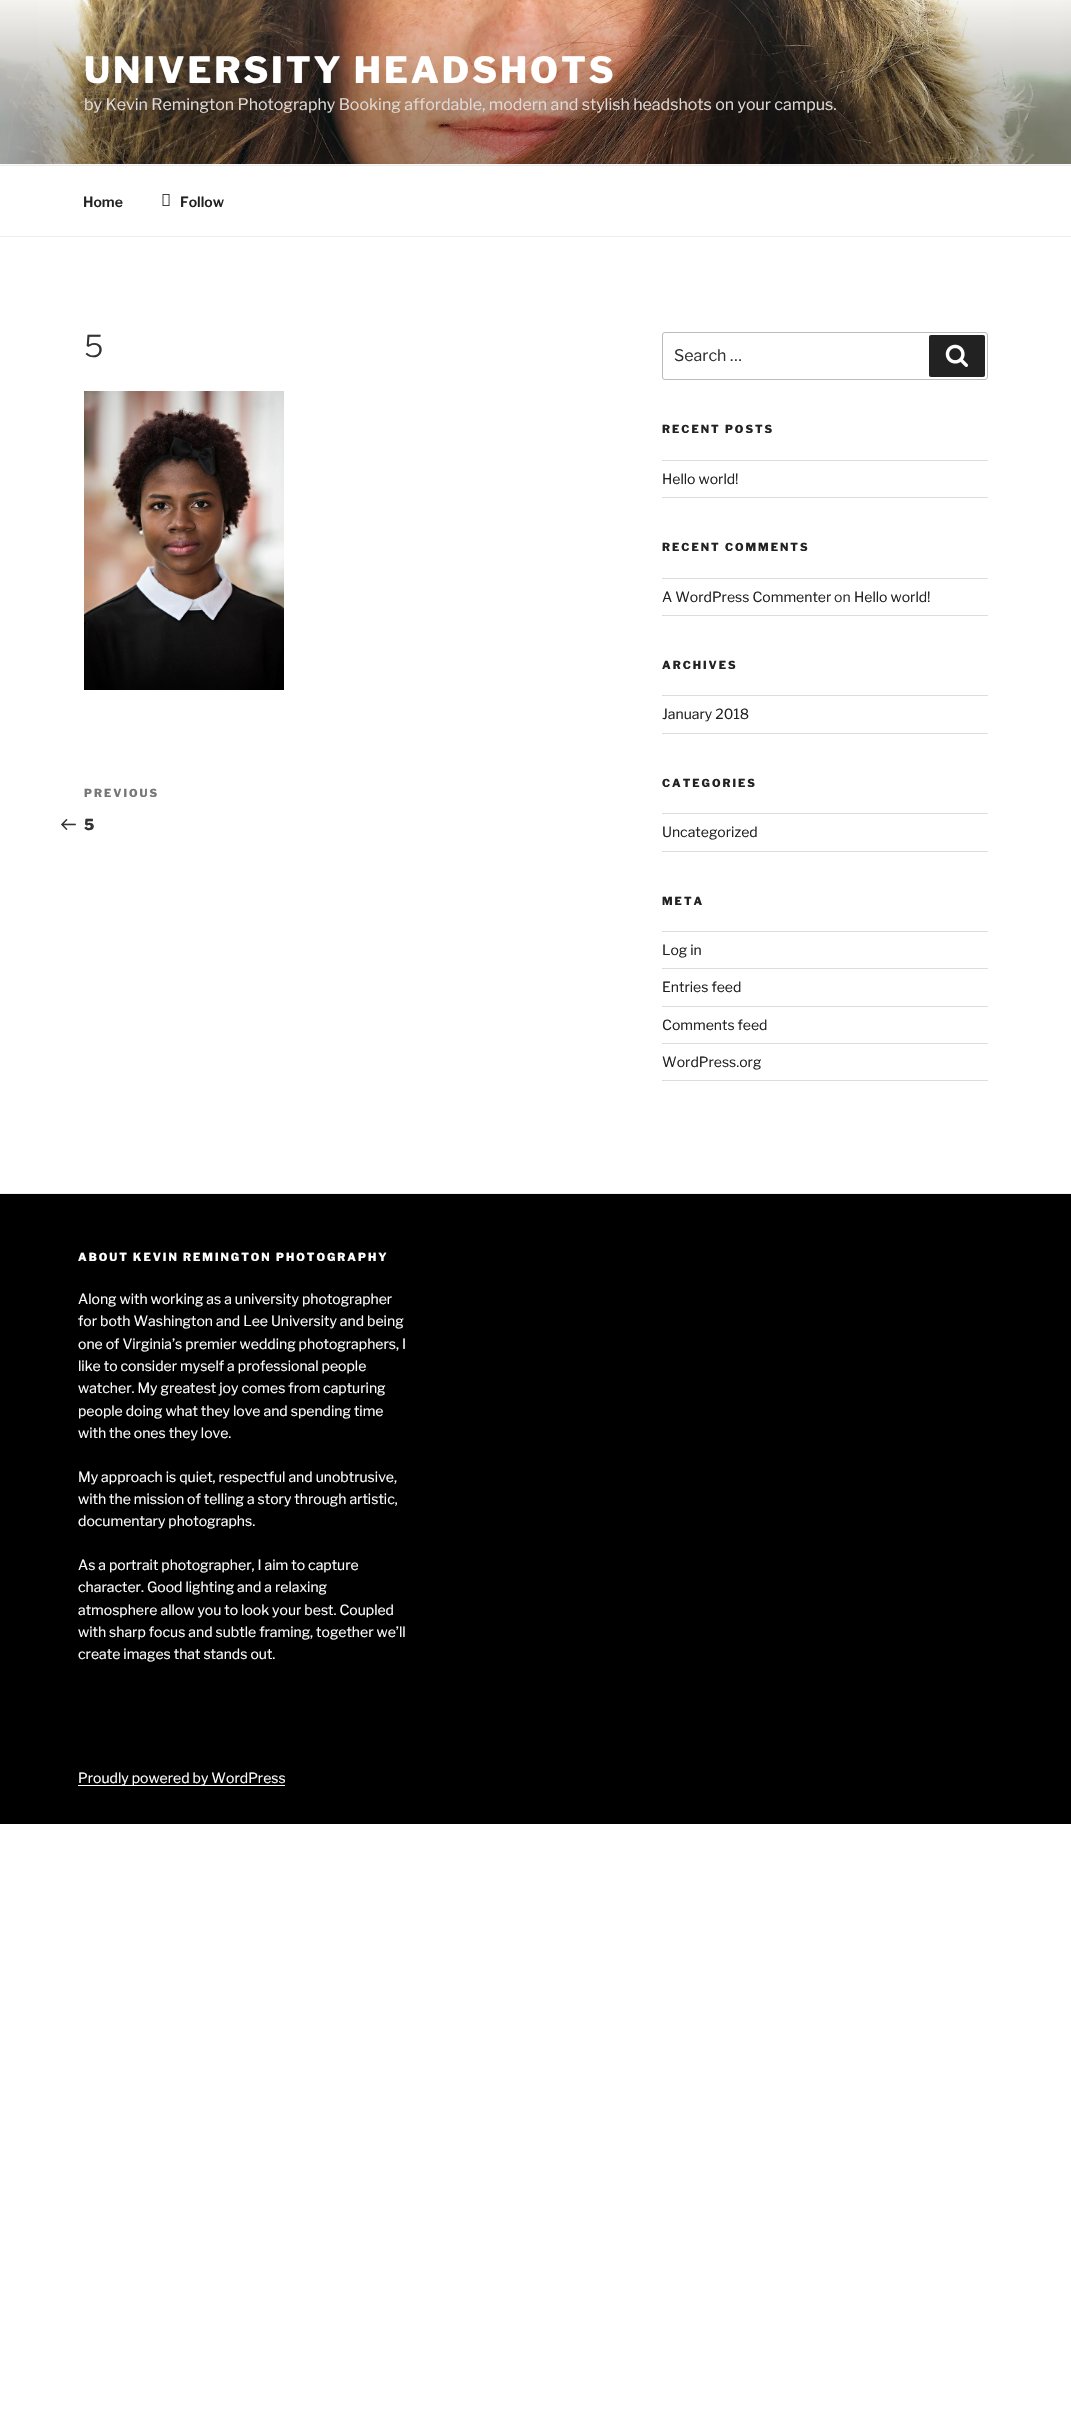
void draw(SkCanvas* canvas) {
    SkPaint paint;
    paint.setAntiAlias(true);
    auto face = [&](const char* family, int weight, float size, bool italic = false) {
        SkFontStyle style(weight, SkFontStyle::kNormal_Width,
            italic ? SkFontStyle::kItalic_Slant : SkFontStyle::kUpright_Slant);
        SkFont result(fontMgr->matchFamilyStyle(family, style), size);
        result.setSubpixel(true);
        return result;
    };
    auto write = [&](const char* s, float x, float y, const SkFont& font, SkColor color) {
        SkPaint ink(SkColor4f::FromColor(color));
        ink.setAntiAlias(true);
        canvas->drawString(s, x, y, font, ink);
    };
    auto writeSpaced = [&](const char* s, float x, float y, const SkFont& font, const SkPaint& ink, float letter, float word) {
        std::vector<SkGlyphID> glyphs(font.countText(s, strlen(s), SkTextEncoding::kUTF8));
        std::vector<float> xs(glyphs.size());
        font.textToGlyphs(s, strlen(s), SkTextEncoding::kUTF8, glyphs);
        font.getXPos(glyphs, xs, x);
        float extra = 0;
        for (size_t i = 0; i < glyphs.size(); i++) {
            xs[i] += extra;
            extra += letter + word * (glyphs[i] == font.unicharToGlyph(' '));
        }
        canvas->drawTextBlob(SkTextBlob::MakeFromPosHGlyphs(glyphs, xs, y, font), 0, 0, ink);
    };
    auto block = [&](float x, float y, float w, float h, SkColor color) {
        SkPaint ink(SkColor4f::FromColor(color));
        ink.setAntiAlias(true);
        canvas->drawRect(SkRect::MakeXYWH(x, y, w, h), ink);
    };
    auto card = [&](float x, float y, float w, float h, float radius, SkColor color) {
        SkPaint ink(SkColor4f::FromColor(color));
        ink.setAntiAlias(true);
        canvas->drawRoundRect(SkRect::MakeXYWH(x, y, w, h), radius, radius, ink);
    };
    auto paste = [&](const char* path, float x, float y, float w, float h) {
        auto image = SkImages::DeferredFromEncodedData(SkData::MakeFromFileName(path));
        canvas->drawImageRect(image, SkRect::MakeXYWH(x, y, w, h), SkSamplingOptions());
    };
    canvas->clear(SK_ColorWHITE);
    block(0, 164, 1071, 1, SkColorSetRGB(250, 250, 250));
    paste("pic1.png", 0, 0, 1071, 164);
    auto kFont1 = face("Libre Franklin", 800, 36);
    paint.setColor(SK_ColorWHITE);
    writeSpaced("UNIVERSITY HEADSHOTS", 84, 83, kFont1, paint, 2.9f, 0);
    auto kFont2 = face("Libre Franklin", 400, 16);
    write("by Kevin Remington Photography Booking affordable, modern and stylish headshots on your campus.", 84, 110, kFont2, SkColorSetRGB(223, 218, 215));
    block(0, 165, 1071, 1, SkColorSetRGB(238, 238, 238));
    block(0, 236, 1071, 1, SkColorSetRGB(238, 238, 238));
    auto kFont3 = face("Libre Franklin", 600, 14);
    write("Home", 83, 207, kFont3, SkColorSetRGB(34, 34, 34));
    paste("pic2.png", 162, 194, 8, 12);
    write("Follow", 180, 207, kFont3, SkColorSetRGB(34, 34, 34));
    auto kFont4 = face("Libre Franklin", 300, 30);
    write("5", 84, 357, kFont4, SkColorSetRGB(51, 51, 51));
    paste("pic3.png", 84, 391, 200, 299);
    auto kFont5 = face("Libre Franklin", 800, 11);
    paint.setColor(SkColorSetRGB(118, 118, 118));
    writeSpaced("PREVIOUS", 84, 797, kFont5, paint, 2, 0);
    paste("pic4.png", 61, 819, 15, 11);
    auto kFont6 = face("Libre Franklin", 800, 15);
    write("5", 84, 830, kFont6, SkColorSetRGB(51, 51, 51));
    paint.setStyle(SkPaint::kStroke_Style);
    paint.setStrokeWidth(1);
    paint.setColor(SkColorSetRGB(187, 187, 187));
    canvas->drawRoundRect(SkRect::MakeXYWH(662.5f, 332.5f, 325, 47), 2.5f, 2.5f, paint);
    write("Search …", 674, 361, kFont2, SkColorSetRGB(51, 51, 51));
    card(929, 335, 56, 42, 2, SkColorSetRGB(34, 34, 34));
    paste("pic5.png", 945, 344, 23, 23);
    paint.setStyle(SkPaint::kFill_Style);
    paint.setColor(SkColorSetRGB(34, 34, 34));
    writeSpaced("RECENT POSTS", 662, 433, kFont5, paint, 2, 0);
    block(662, 460, 326, 1, SkColorSetRGB(221, 221, 221));
    block(662, 497, 326, 1, SkColorSetRGB(221, 221, 221));
    auto kFont7 = face("Libre Franklin", 400, 14);
    write("Hello world!", 662, 484, kFont7, SkColorSetRGB(34, 34, 34));
    writeSpaced("RECENT COMMENTS", 662, 551, kFont5, paint, 2, 0);
    block(662, 578, 326, 1, SkColorSetRGB(221, 221, 221));
    block(662, 615, 326, 1, SkColorSetRGB(221, 221, 221));
    write("A WordPress Commenter", 662, 602, kFont7, SkColorSetRGB(34, 34, 34));
    write("on", 834, 602, kFont7, SkColorSetRGB(51, 51, 51));
    write("Hello world!", 854, 602, kFont7, SkColorSetRGB(34, 34, 34));
    writeSpaced("ARCHIVES", 662, 669, kFont5, paint, 2, 0);
    block(662, 695, 326, 1, SkColorSetRGB(221, 221, 221));
    block(662, 733, 326, 1, SkColorSetRGB(221, 221, 221));
    write("January 2018", 662, 719, kFont7, SkColorSetRGB(34, 34, 34));
    writeSpaced("CATEGORIES", 662, 787, kFont5, paint, 2, 0);
    block(662, 813, 326, 1, SkColorSetRGB(221, 221, 221));
    block(662, 851, 326, 1, SkColorSetRGB(221, 221, 221));
    write("Uncategorized", 662, 837, kFont7, SkColorSetRGB(34, 34, 34));
    writeSpaced("META", 662, 905, kFont5, paint, 2, 0);
    block(662, 931, 326, 1, SkColorSetRGB(221, 221, 221));
    block(662, 968, 326, 1, SkColorSetRGB(221, 221, 221));
    write("Log in", 662, 955, kFont7, SkColorSetRGB(34, 34, 34));
    block(662, 1006, 326, 1, SkColorSetRGB(221, 221, 221));
    write("Entries feed", 662, 992, kFont7, SkColorSetRGB(34, 34, 34));
    block(662, 1043, 326, 1, SkColorSetRGB(221, 221, 221));
    write("Comments feed", 662, 1030, kFont7, SkColorSetRGB(34, 34, 34));
    block(662, 1080, 326, 1, SkColorSetRGB(221, 221, 221));
    write("WordPress.org", 662, 1067, kFont7, SkColorSetRGB(34, 34, 34));
    block(0, 1194, 1071, 630, SK_ColorBLACK);
    block(0, 1193, 1071, 1, SkColorSetRGB(238, 238, 238));
    paint.setColor(SK_ColorWHITE);
    writeSpaced("ABOUT KEVIN REMINGTON PHOTOGRAPHY", 78, 1261, kFont5, paint, 2, 0);
    write("Along with working as a university photographer", 78, 1304, kFont7, SK_ColorWHITE);
    write("for both Washington and Lee University and being", 78, 1326, kFont7, SK_ColorWHITE);
    write("one of Virginia’s premier wedding photographers, I", 78, 1349, kFont7, SK_ColorWHITE);
    write("like to consider myself a professional people", 78, 1371, kFont7, SK_ColorWHITE);
    write("watcher. My greatest joy comes from capturing", 78, 1393, kFont7, SK_ColorWHITE);
    write("people doing what they love and spending time", 78, 1416, kFont7, SK_ColorWHITE);
    write("with the ones they love.", 78, 1438, kFont7, SK_ColorWHITE);
    write("My approach is quiet, respectful and unobtrusive,", 78, 1482, kFont7, SK_ColorWHITE);
    write("with the mission of telling a story through artistic,", 78, 1504, kFont7, SK_ColorWHITE);
    write("documentary photographs.", 78, 1526, kFont7, SK_ColorWHITE);
    write("As a portrait photographer, I aim to capture", 78, 1570, kFont7, SK_ColorWHITE);
    write("character. Good lighting and a relaxing", 78, 1592, kFont7, SK_ColorWHITE);
    write("atmosphere allow you to look your best. Coupled", 78, 1615, kFont7, SK_ColorWHITE);
    write("with sharp focus and subtle framing, together we’ll", 78, 1637, kFont7, SK_ColorWHITE);
    write("create images that stands out.", 78, 1659, kFont7, SK_ColorWHITE);
    block(78, 1785, 207, 1, SK_ColorWHITE);
    write("Proudly powered by WordPress", 78, 1783, kFont7, SK_ColorWHITE);
}
